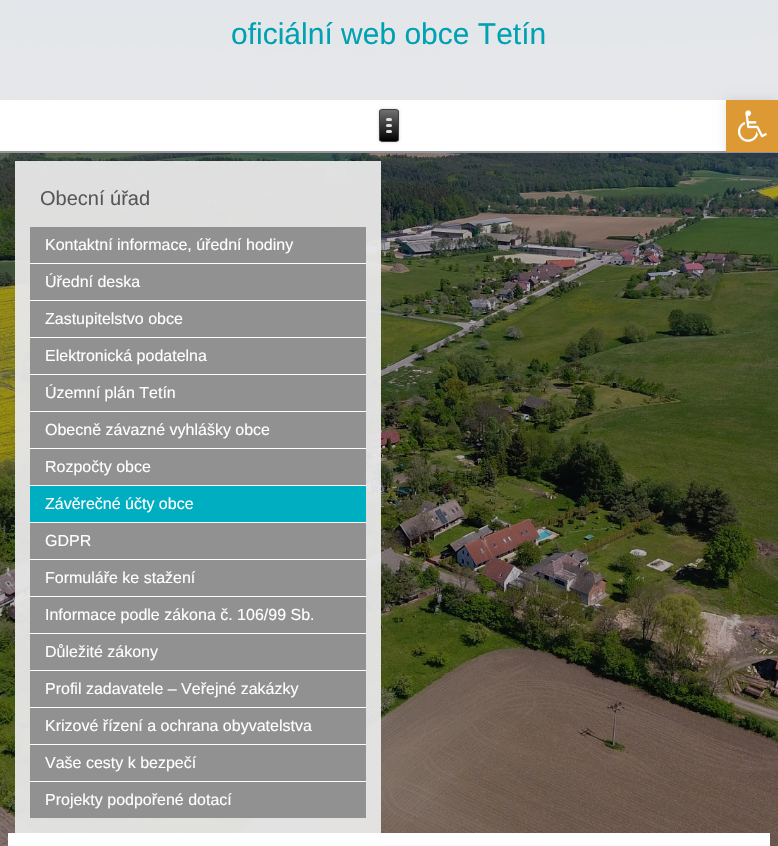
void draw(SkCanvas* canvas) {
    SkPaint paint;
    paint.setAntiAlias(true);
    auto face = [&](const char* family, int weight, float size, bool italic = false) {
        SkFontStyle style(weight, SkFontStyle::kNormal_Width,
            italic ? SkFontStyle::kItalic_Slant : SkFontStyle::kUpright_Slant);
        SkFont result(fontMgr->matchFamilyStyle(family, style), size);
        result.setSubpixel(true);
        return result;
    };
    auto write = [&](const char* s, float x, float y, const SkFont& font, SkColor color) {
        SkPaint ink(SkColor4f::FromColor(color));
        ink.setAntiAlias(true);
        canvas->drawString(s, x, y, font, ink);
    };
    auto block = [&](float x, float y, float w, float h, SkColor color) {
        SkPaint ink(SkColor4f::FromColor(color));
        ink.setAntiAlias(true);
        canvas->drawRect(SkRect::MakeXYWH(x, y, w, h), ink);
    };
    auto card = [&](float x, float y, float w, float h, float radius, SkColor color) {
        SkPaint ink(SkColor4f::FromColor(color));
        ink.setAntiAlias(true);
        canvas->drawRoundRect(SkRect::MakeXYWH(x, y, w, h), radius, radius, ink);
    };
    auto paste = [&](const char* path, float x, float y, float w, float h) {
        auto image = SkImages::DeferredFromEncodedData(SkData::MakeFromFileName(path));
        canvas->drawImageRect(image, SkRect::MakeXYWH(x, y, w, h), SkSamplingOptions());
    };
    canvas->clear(SK_ColorWHITE);
    paste("pic1.png", 0, 0, 778, 846);
    block(0, 0, 778, 100, SkColorSetARGB(230, 241, 241, 241));
    auto kFont1 = face("Liberation Sans", 400, 30);
    write("oficiální web obce Tetín", 231, 44, kFont1, SkColorSetRGB(0, 161, 178));
    block(0, 100, 726, 51, SK_ColorWHITE);
    block(0, 151, 778, 2, SkColorSetRGB(151, 151, 155));
    paint.setColor(SkColorSetARGB(51, 0, 0, 0));
    paint.setMaskFilter(SkMaskFilter::MakeBlur(kNormal_SkBlurStyle, 1.5f));
    canvas->drawRoundRect(SkRect::MakeXYWH(379, 109, 20, 33), 3, 3, paint);
    paint.setMaskFilter(nullptr);
    canvas->save();
    canvas->clipPath(SkPathBuilder().moveTo(382, 109).lineTo(396, 109).cubicTo(397.5f, 109, 399, 110.5f, 399, 112).lineTo(399, 139).cubicTo(399, 140.5f, 397.5f, 142, 396, 142).lineTo(382, 142).cubicTo(380.5f, 142, 379, 140.5f, 379, 139).lineTo(379, 112).cubicTo(379, 110.5f, 380.5f, 109, 382, 109).close().detach(), true);
    {
        const SkColor colors[] = {SkColorSetRGB(112, 112, 112), SK_ColorBLACK};
        const float stops[] = {0, 1};
        const SkPoint ends[] = {{389, 110}, {389, 141}};
        paint.setShader(SkGradientShader::MakeLinear(ends, colors, stops, 2, SkTileMode::kClamp));
        paint.setAlpha(255);
    }
    canvas->drawRect(SkRect::MakeXYWH(379, 110, 20, 31), paint);
    canvas->restore();
    paint.setStyle(SkPaint::kStroke_Style);
    paint.setStrokeWidth(1);
    paint.setShader(nullptr);
    paint.setColor(SkColorSetRGB(64, 64, 64));
    canvas->drawRoundRect(SkRect::MakeXYWH(379.5f, 109.5f, 19, 32), 2.5f, 2.5f, paint);
    card(386, 118, 6, 3, 1.5f, SkColorSetRGB(224, 224, 224));
    card(386, 124, 6, 3, 1.5f, SkColorSetRGB(224, 224, 224));
    card(386, 130, 6, 3, 1.5f, SkColorSetRGB(224, 224, 224));
    block(15, 161, 366, 672, SkColorSetARGB(242, 232, 232, 232));
    auto kFont2 = face("Liberation Sans", 400, 20);
    write("Obecní úřad", 40, 205, kFont2, SkColorSetRGB(87, 87, 87));
    block(30, 227, 336, 36, SkColorSetRGB(145, 145, 145));
    auto kFont3 = face("Liberation Sans", 400, 16);
    write("Kontaktní informace, úřední hodiny", 45, 250, kFont3, SK_ColorWHITE);
    block(30, 263, 336, 1, SK_ColorWHITE);
    block(30, 264, 336, 36, SkColorSetRGB(145, 145, 145));
    write("Úřední deska", 45, 287, kFont3, SK_ColorWHITE);
    block(30, 300, 336, 1, SK_ColorWHITE);
    block(30, 301, 336, 36, SkColorSetRGB(145, 145, 145));
    write("Zastupitelstvo obce", 45, 324, kFont3, SK_ColorWHITE);
    block(30, 337, 336, 1, SK_ColorWHITE);
    block(30, 338, 336, 36, SkColorSetRGB(145, 145, 145));
    write("Elektronická podatelna", 45, 361, kFont3, SK_ColorWHITE);
    block(30, 374, 336, 1, SK_ColorWHITE);
    block(30, 375, 336, 36, SkColorSetRGB(145, 145, 145));
    write("Územní plán Tetín", 45, 398, kFont3, SK_ColorWHITE);
    block(30, 411, 336, 1, SK_ColorWHITE);
    block(30, 412, 336, 36, SkColorSetRGB(145, 145, 145));
    write("Obecně závazné vyhlášky obce", 45, 435, kFont3, SK_ColorWHITE);
    block(30, 448, 336, 1, SK_ColorWHITE);
    block(30, 449, 336, 36, SkColorSetRGB(145, 145, 145));
    write("Rozpočty obce", 45, 472, kFont3, SK_ColorWHITE);
    block(30, 485, 336, 1, SK_ColorWHITE);
    block(30, 486, 336, 36, SkColorSetRGB(0, 174, 194));
    write("Závěrečné účty obce", 45, 509, kFont3, SK_ColorWHITE);
    block(30, 522, 336, 1, SK_ColorWHITE);
    block(30, 523, 336, 36, SkColorSetRGB(145, 145, 145));
    write("GDPR", 45, 546, kFont3, SK_ColorWHITE);
    block(30, 559, 336, 1, SK_ColorWHITE);
    block(30, 560, 336, 36, SkColorSetRGB(145, 145, 145));
    write("Formuláře ke stažení", 45, 583, kFont3, SK_ColorWHITE);
    block(30, 596, 336, 1, SK_ColorWHITE);
    block(30, 597, 336, 36, SkColorSetRGB(145, 145, 145));
    write("Informace podle zákona č. 106/99 Sb.", 45, 620, kFont3, SK_ColorWHITE);
    block(30, 633, 336, 1, SK_ColorWHITE);
    block(30, 634, 336, 36, SkColorSetRGB(145, 145, 145));
    write("Důležité zákony", 45, 657, kFont3, SK_ColorWHITE);
    block(30, 670, 336, 1, SK_ColorWHITE);
    block(30, 671, 336, 36, SkColorSetRGB(145, 145, 145));
    write("Profil zadavatele – Veřejné zakázky", 45, 694, kFont3, SK_ColorWHITE);
    block(30, 707, 336, 1, SK_ColorWHITE);
    block(30, 708, 336, 36, SkColorSetRGB(145, 145, 145));
    write("Krizové řízení a ochrana obyvatelstva", 45, 731, kFont3, SK_ColorWHITE);
    block(30, 744, 336, 1, SK_ColorWHITE);
    block(30, 745, 336, 36, SkColorSetRGB(145, 145, 145));
    write("Vaše cesty k bezpečí", 45, 768, kFont3, SK_ColorWHITE);
    block(30, 781, 336, 1, SK_ColorWHITE);
    block(30, 782, 336, 36, SkColorSetRGB(145, 145, 145));
    write("Projekty podpořené dotací", 45, 805, kFont3, SK_ColorWHITE);
    block(8, 833, 762, 13, SK_ColorWHITE);
    paint.setStyle(SkPaint::kFill_Style);
    paint.setColor(SkColorSetARGB(26, 0, 0, 0));
    paint.setMaskFilter(SkMaskFilter::MakeBlur(kNormal_SkBlurStyle, 5));
    canvas->drawRect(SkRect::MakeXYWH(726, 100, 52, 52), paint);
    paint.setMaskFilter(nullptr);
    block(726, 100, 52, 52, SkColorSetRGB(221, 153, 51));
    paste("pic2.png", 737, 110, 30, 32);
}
